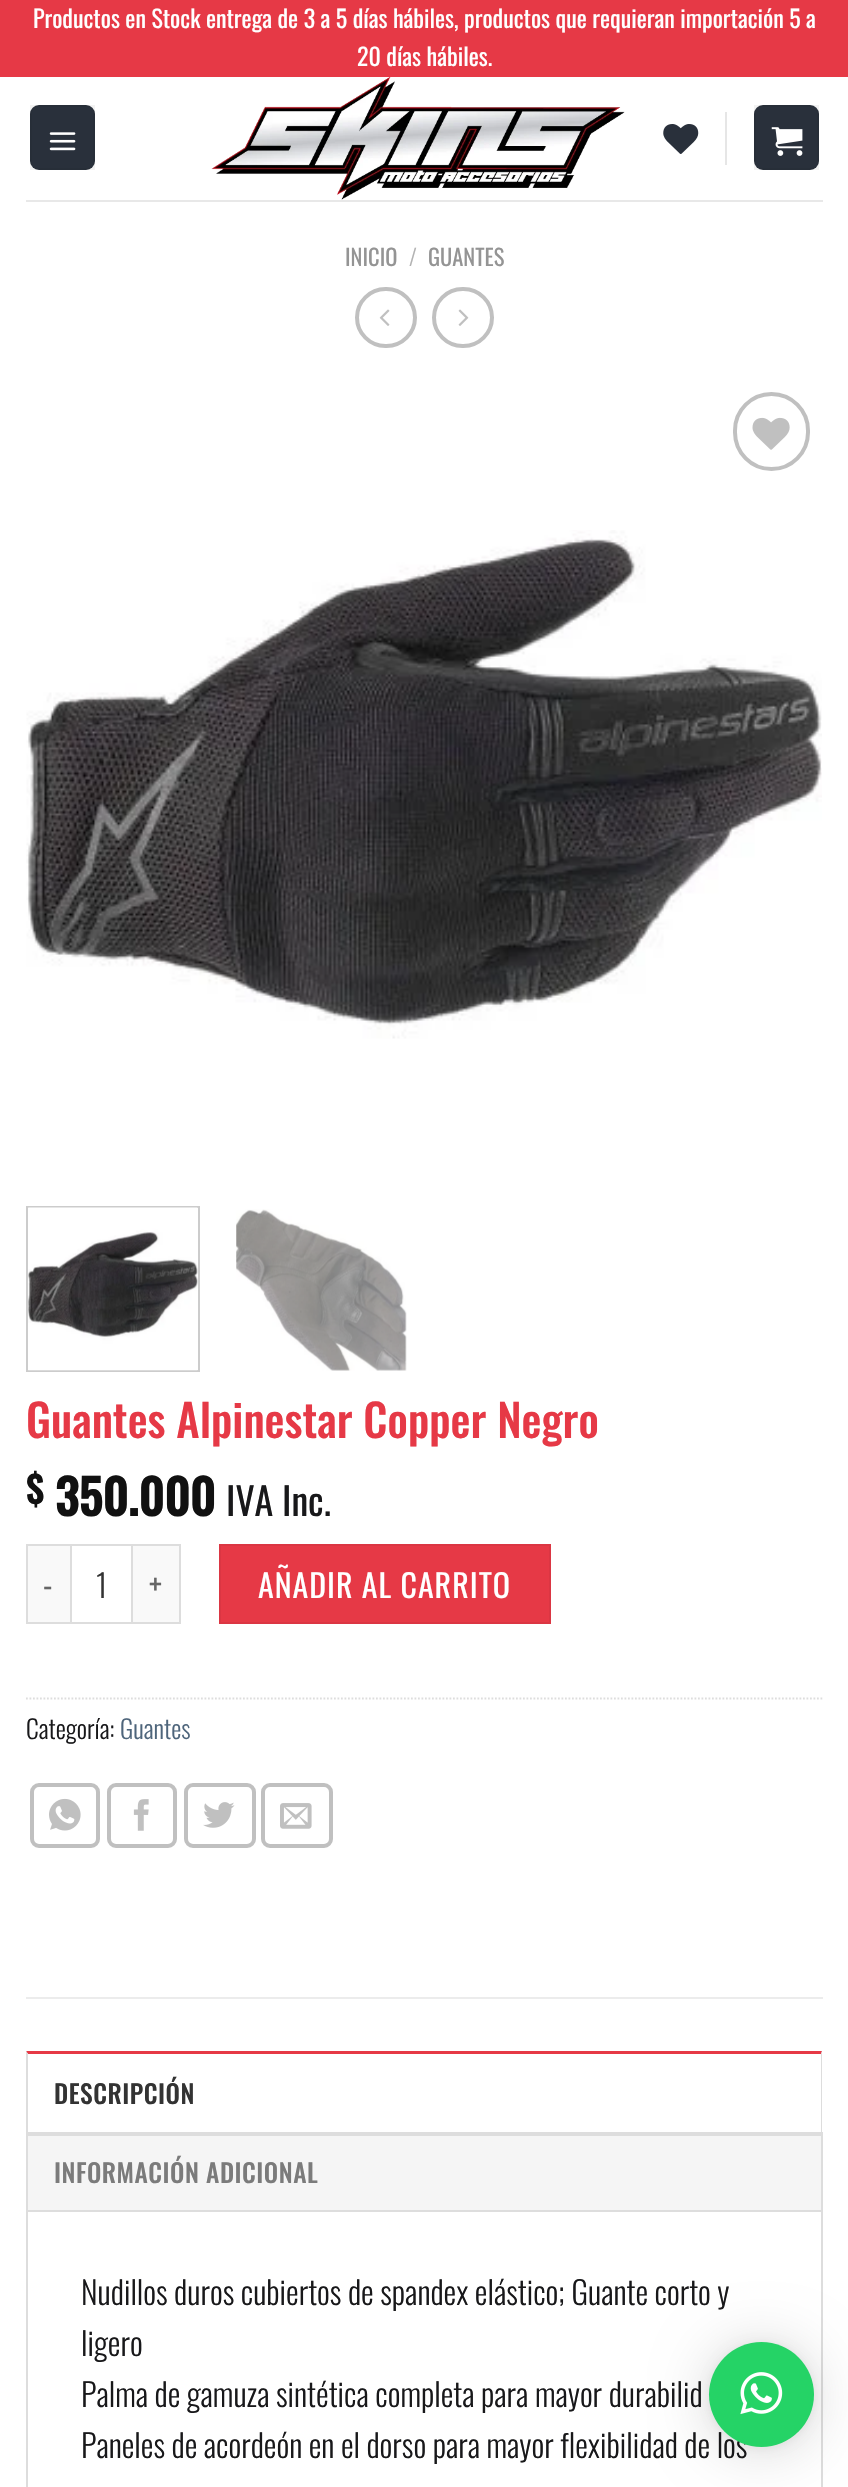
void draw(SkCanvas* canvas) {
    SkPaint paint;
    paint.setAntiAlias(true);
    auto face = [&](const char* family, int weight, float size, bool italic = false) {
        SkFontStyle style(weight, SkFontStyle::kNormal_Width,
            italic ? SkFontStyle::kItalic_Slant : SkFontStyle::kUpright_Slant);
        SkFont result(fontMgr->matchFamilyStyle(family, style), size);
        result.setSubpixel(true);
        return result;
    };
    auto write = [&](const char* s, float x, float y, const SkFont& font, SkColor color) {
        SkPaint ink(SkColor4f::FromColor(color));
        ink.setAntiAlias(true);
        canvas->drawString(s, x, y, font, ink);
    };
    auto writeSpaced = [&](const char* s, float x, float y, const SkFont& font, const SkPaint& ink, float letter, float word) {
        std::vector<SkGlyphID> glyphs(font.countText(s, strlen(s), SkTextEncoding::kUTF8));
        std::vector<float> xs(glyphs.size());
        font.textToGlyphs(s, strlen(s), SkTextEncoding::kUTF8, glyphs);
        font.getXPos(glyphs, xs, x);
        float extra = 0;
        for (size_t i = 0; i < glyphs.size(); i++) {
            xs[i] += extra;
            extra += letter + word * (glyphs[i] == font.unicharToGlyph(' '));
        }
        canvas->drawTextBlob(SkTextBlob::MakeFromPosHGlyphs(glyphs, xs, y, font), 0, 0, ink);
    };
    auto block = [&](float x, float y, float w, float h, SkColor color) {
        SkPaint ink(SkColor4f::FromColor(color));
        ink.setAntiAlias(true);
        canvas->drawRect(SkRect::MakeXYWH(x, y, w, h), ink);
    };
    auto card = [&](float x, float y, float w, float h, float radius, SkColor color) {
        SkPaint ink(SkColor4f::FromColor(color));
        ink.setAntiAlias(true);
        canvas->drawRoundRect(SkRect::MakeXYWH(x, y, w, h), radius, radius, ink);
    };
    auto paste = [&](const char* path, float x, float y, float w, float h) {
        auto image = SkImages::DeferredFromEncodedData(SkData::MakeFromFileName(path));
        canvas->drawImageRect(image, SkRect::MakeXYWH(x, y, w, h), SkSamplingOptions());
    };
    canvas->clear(SK_ColorWHITE);
    block(0, 0, 848, 77, SkColorSetRGB(230, 57, 70));
    auto kFont1 = face("Oswald", 400, 23.95f);
    write("Productos en Stock entrega de 3 a 5 días hábiles, productos que requieran importación 5 a", 33, 28, kFont1, SK_ColorWHITE);
    write("20 días hábiles.", 357, 66, kFont1, SK_ColorWHITE);
    card(30, 105, 65, 65, 9, SkColorSetRGB(41, 48, 59));
    paint.setStyle(SkPaint::kStroke_Style);
    paint.setStrokeWidth(2);
    paint.setColor(SkColorSetARGB(13, 0, 0, 0));
    canvas->drawRect(SkRect::MakeXYWH(31, 106, 63, 63), paint);
    paste("pic1.png", 49, 132, 27, 19);
    paste("pic2.png", 211, 77, 414, 123);
    paste("pic3.png", 663, 124, 36, 30);
    block(725, 112, 2, 53, SkColorSetRGB(230, 230, 230));
    card(754, 105, 65, 65, 9, SkColorSetRGB(41, 48, 59));
    canvas->drawRect(SkRect::MakeXYWH(755, 106, 63, 63), paint);
    paste("pic4.png", 771, 127, 32, 29);
    block(26, 200, 797, 2, SkColorSetRGB(232, 232, 232));
    auto kFont2 = face("Oswald", 400, 22.5f);
    write("INICIO", 345, 266, kFont2, SkColorSetRGB(148, 148, 148));
    auto kFont3 = face("Oswald", 300, 22.5f);
    write("/", 409, 266, kFont3, SkColorSetRGB(178, 178, 178));
    write("GUANTES", 428, 266, kFont2, SkColorSetRGB(148, 148, 148));
    paint.setStrokeWidth(4);
    paint.setColor(SkColorSetRGB(192, 192, 192));
    canvas->drawRoundRect(SkRect::MakeXYWH(357, 289, 58, 57), 28.5f, 28.5f, paint);
    paste("pic5.png", 379, 309, 11, 17);
    canvas->drawRoundRect(SkRect::MakeXYWH(434, 289, 58, 57), 28.5f, 28.5f, paint);
    paste("pic6.png", 458, 309, 11, 17);
    canvas->drawRoundRect(SkRect::MakeXYWH(735, 394, 73, 75), 36.5f, 36.5f, paint);
    paste("pic7.png", 752, 417, 38, 33);
    paste("pic8.png", 26, 530, 796, 509);
    paint.setStrokeWidth(2);
    paint.setColor(SkColorSetRGB(204, 204, 204));
    canvas->drawRect(SkRect::MakeXYWH(27, 1207, 172, 164), paint);
    paste("pic9.png", 28, 1207, 170, 164);
    paste("pic10.png", 236, 1209, 171, 162);
    auto kFont4 = face("Oswald", 500, 44.75f);
    write("Guantes Alpinestar Copper Negro", 26, 1438, kFont4, SkColorSetRGB(230, 57, 70));
    auto kFont5 = face("Oswald", 700, 36);
    write("$", 26, 1504, kFont5, SkColorSetRGB(17, 17, 17));
    auto kFont6 = face("Oswald", 700, 48);
    write("350.000", 55, 1516, kFont6, SkColorSetRGB(17, 17, 17));
    auto kFont7 = face("Oswald", 400, 38);
    write("IVA Inc.", 226, 1516, kFont7, SkColorSetRGB(24, 24, 26));
    block(28, 1546, 42, 76, SkColorSetRGB(249, 249, 249));
    block(26, 1544, 44, 2, SkColorSetRGB(221, 221, 221));
    block(26, 1622, 44, 2, SkColorSetRGB(221, 221, 221));
    block(26, 1544, 2, 80, SkColorSetRGB(221, 221, 221));
    auto kFont8 = face("Oswald", 400, 31);
    paint.setStyle(SkPaint::kFill_Style);
    paint.setColor(SkColorSetRGB(102, 102, 102));
    writeSpaced("-", 43, 1597, kFont8, paint, 1, 0);
    paint.setStyle(SkPaint::kStroke_Style);
    paint.setColor(SkColorSetRGB(221, 221, 221));
    canvas->drawRect(SkRect::MakeXYWH(71, 1545, 61, 78), paint);
    auto kFont9 = face("Oswald", 300, 31.9f);
    write("1", 96, 1598, kFont9, SkColorSetRGB(51, 51, 51));
    block(133, 1546, 46, 76, SkColorSetRGB(249, 249, 249));
    block(133, 1544, 47, 2, SkColorSetRGB(221, 221, 221));
    block(179, 1544, 2, 80, SkColorSetRGB(221, 221, 221));
    block(133, 1622, 47, 2, SkColorSetRGB(221, 221, 221));
    paint.setStyle(SkPaint::kFill_Style);
    paint.setColor(SkColorSetRGB(102, 102, 102));
    writeSpaced("+", 149, 1597, kFont8, paint, 1, 0);
    paint.setColor(SkColorSetRGB(230, 57, 70));
    canvas->drawRect(SkRect::MakeXYWH(220, 1545, 330, 78), paint);
    paint.setStyle(SkPaint::kStroke_Style);
    paint.setColor(SkColorSetRGB(219, 54, 67));
    canvas->drawRect(SkRect::MakeXYWH(220, 1545, 330, 78), paint);
    auto kFont10 = face("Oswald", 400, 31.9f);
    paint.setStyle(SkPaint::kFill_Style);
    paint.setColor(SK_ColorWHITE);
    writeSpaced("AÑADIR AL CARRITO", 258, 1598, kFont10, paint, 1, 0);
    paint.setStyle(SkPaint::kStroke_Style);
    paint.setStrokeWidth(1.8f);
    paint.setColor(SkColorSetRGB(221, 221, 221));
    paint.setPathEffect(SkDashPathEffect::Make({{1.75f, 1.75f}}, 0));
    canvas->drawPath(SkPathBuilder().moveTo(26, 1698.5f).lineTo(822.5f, 1698.5f).detach(), paint);
    paint.setPathEffect(nullptr);
    auto kFont11 = face("Oswald", 300, 25.5f);
    write("Categoría:", 26, 1739, kFont11, SkColorSetRGB(24, 24, 26));
    write("Guantes", 120, 1739, kFont11, SkColorSetRGB(78, 101, 123));
    paint.setStrokeWidth(4);
    paint.setColor(SkColorSetRGB(192, 192, 192));
    canvas->drawRoundRect(SkRect::MakeXYWH(32, 1785, 66, 61), 7, 7, paint);
    paste("pic11.png", 49, 1798, 32, 33);
    canvas->drawRoundRect(SkRect::MakeXYWH(109, 1785, 66, 61), 7, 7, paint);
    paste("pic12.png", 133, 1799, 16, 32);
    canvas->drawRoundRect(SkRect::MakeXYWH(186, 1785, 68, 61), 7, 7, paint);
    paste("pic13.png", 203, 1802, 32, 26);
    canvas->drawRoundRect(SkRect::MakeXYWH(263, 1785, 68, 61), 7, 7, paint);
    paste("pic14.png", 280, 1803, 32, 26);
    block(26, 1997, 797, 2, SkColorSetRGB(236, 236, 236));
    paint.setStyle(SkPaint::kFill_Style);
    paint.setColor(SkColorSetRGB(230, 57, 70));
    canvas->drawPath(SkPathBuilder().moveTo(26, 2051).lineTo(822, 2051).lineTo(821, 2054).lineTo(28, 2054).close().detach(), paint);
    paint.setColor(SkColorSetRGB(221, 221, 221));
    canvas->drawPath(SkPathBuilder().moveTo(822, 2051).lineTo(822, 2132).lineTo(821, 2132).lineTo(821, 2054).close().detach(), paint);
    canvas->drawPath(SkPathBuilder().moveTo(26, 2132).lineTo(26, 2051).lineTo(28, 2054).lineTo(28, 2132).close().detach(), paint);
    auto kFont12 = face("Oswald", 500, 25.5f);
    paint.setColor(SkColorSetRGB(51, 51, 51));
    writeSpaced("DESCRIPCIÓN", 54, 2104, kFont12, paint, 0.5f, 0);
    block(28, 2136, 793, 74, SkColorSetRGB(245, 245, 245));
    block(26, 2132, 797, 4, SkColorSetRGB(221, 221, 221));
    block(821, 2132, 2, 78, SkColorSetRGB(221, 221, 221));
    block(26, 2132, 2, 78, SkColorSetRGB(221, 221, 221));
    paint.setColor(SkColorSetRGB(123, 123, 123));
    writeSpaced("INFORMACIÓN ADICIONAL", 54, 2183, kFont12, paint, 0.5f, 0);
    paint.setStyle(SkPaint::kStroke_Style);
    paint.setStrokeWidth(2);
    paint.setColor(SkColorSetRGB(221, 221, 221));
    canvas->drawRect(SkRect::MakeXYWH(27, 2211, 795, 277), paint);
    write("Nudillos duros cubiertos de spandex elástico; Guante corto y", 81, 2305, kFont9, SkColorSetRGB(24, 24, 26));
    write("ligero", 81, 2356, kFont9, SkColorSetRGB(24, 24, 26));
    write("Palma de gamuza sintética completa para mayor durabilid", 81, 2407, kFont9, SkColorSetRGB(24, 24, 26));
    write("Paneles de acordeón en el dorso para mayor flexibilidad de los", 81, 2458, kFont9, SkColorSetRGB(24, 24, 26));
    paint.setStyle(SkPaint::kFill_Style);
    paint.setColor(SkColorSetARGB(41, 0, 0, 0));
    paint.setMaskFilter(SkMaskFilter::MakeBlur(kNormal_SkBlurStyle, 28));
    canvas->drawRoundRect(SkRect::MakeXYWH(709, 2345, 105, 105), 52.5f, 52.5f, paint);
    paint.setMaskFilter(nullptr);
    paint.setColor(SkColorSetARGB(15, 0, 0, 0));
    paint.setMaskFilter(SkMaskFilter::MakeBlur(kNormal_SkBlurStyle, 5));
    canvas->drawRoundRect(SkRect::MakeXYWH(709, 2343, 105, 105), 52.5f, 52.5f, paint);
    paint.setMaskFilter(nullptr);
    paint.setColor(SkColorSetRGB(37, 211, 102));
    canvas->drawCircle(761.5f, 2394.5f, 52.5f, paint);
    paste("pic15.png", 740, 2372, 43, 43);
}
